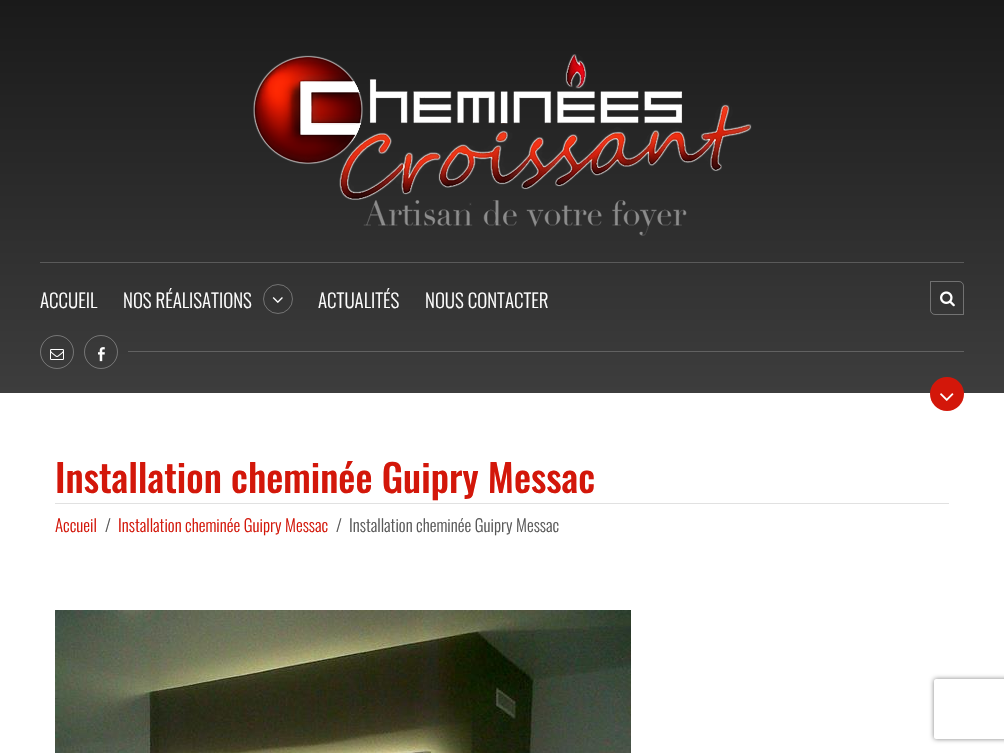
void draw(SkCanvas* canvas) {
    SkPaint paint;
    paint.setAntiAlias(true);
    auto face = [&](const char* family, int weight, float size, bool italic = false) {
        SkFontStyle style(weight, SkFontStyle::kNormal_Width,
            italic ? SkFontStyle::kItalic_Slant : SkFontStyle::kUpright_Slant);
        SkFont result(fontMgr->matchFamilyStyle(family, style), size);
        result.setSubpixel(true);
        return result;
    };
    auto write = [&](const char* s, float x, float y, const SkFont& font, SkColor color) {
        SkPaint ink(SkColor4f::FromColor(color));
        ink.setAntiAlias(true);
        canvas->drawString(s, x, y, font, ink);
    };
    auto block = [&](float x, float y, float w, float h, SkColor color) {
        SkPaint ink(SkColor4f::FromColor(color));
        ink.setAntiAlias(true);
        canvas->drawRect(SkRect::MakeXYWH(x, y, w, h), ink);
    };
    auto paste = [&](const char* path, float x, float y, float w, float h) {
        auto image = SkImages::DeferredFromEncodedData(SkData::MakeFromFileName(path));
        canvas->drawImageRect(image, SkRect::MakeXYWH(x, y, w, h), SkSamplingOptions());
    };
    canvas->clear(SK_ColorWHITE);
    {
        const SkColor colors[] = {SkColorSetRGB(26, 26, 26), SkColorSetRGB(61, 61, 61)};
        const float stops[] = {0, 1};
        const SkPoint ends[] = {{502, 0}, {502, 393}};
        paint.setShader(SkGradientShader::MakeLinear(ends, colors, stops, 2, SkTileMode::kClamp));
        paint.setAlpha(255);
    }
    canvas->drawRect(SkRect::MakeXYWH(0, 0, 1004, 393), paint);
    paste("pic1.png", 253, 54, 499, 182);
    block(40, 262, 924, 1, SkColorSetRGB(90, 90, 90));
    auto kFont1 = face("Oswald", 300, 19);
    write("ACCUEIL", 40, 308, kFont1, SK_ColorWHITE);
    write("NOS RÉALISATIONS", 123, 308, kFont1, SK_ColorWHITE);
    paint.setStyle(SkPaint::kStroke_Style);
    paint.setStrokeWidth(1);
    paint.setShader(nullptr);
    paint.setColor(SkColorSetARGB(77, 255, 255, 255));
    canvas->drawCircle(278, 299, 14.5f, paint);
    paste("pic2.png", 272, 297, 11, 6);
    write("ACTUALITÉS", 318, 308, kFont1, SK_ColorWHITE);
    write("NOUS CONTACTER", 425, 308, kFont1, SK_ColorWHITE);
    canvas->drawPath(SkPathBuilder().moveTo(930.5f, 281.5f).lineTo(959, 281.5f).cubicTo(961.5f, 281.5f, 963.5f, 283.5f, 963.5f, 286).lineTo(963.5f, 314.5f).lineTo(935, 314.5f).cubicTo(932.5f, 314.5f, 930.5f, 312.5f, 930.5f, 310).close().detach(), paint);
    paste("pic3.png", 940, 291, 15, 16);
    canvas->drawCircle(57, 352, 16.5f, paint);
    paste("pic4.png", 50, 349, 14, 11);
    canvas->drawCircle(101, 352, 16.5f, paint);
    paste("pic5.png", 98, 347, 7, 15);
    block(128, 351, 836, 1, SkColorSetRGB(97, 97, 97));
    paint.setStyle(SkPaint::kFill_Style);
    paint.setColor(SkColorSetRGB(211, 23, 10));
    canvas->drawCircle(947, 394, 17, paint);
    paste("pic6.png", 940, 393, 14, 8);
    block(55, 503, 894, 1, SkColorSetRGB(225, 225, 225));
    auto kFont2 = face("Oswald", 500, 38.25f);
    write("Installation cheminée Guipry Messac", 55, 493, kFont2, SkColorSetRGB(211, 23, 10));
    auto kFont3 = face("Oswald", 300, 17);
    write("Accueil", 55, 532, kFont3, SkColorSetRGB(211, 23, 10));
    write("/", 105, 532, kFont3, SkColorSetRGB(88, 88, 88));
    write("Installation cheminée Guipry Messac", 118, 532, kFont3, SkColorSetRGB(211, 23, 10));
    write("/", 336, 532, kFont3, SkColorSetRGB(88, 88, 88));
    write("Installation cheminée Guipry Messac", 349, 532, kFont3, SkColorSetRGB(88, 88, 88));
    paste("pic7.png", 55, 610, 576, 143);
    canvas->save();
    canvas->clipPath(SkPathBuilder(SkPathFillType::kEvenOdd).moveTo(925, 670).lineTo(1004, 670).lineTo(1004, 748).lineTo(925, 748).close().moveTo(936, 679).lineTo(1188, 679).cubicTo(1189, 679, 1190, 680, 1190, 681).lineTo(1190, 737).cubicTo(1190, 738, 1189, 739, 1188, 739).lineTo(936, 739).cubicTo(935, 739, 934, 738, 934, 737).lineTo(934, 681).cubicTo(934, 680, 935, 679, 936, 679).close().detach(), true);
    paint.setColor(SkColorSetRGB(128, 128, 128));
    paint.setMaskFilter(SkMaskFilter::MakeBlur(kNormal_SkBlurStyle, 2.5f));
    canvas->drawRoundRect(SkRect::MakeXYWH(934, 679, 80, 60), 2, 2, paint);
    paint.setMaskFilter(nullptr);
    canvas->restore();
}
